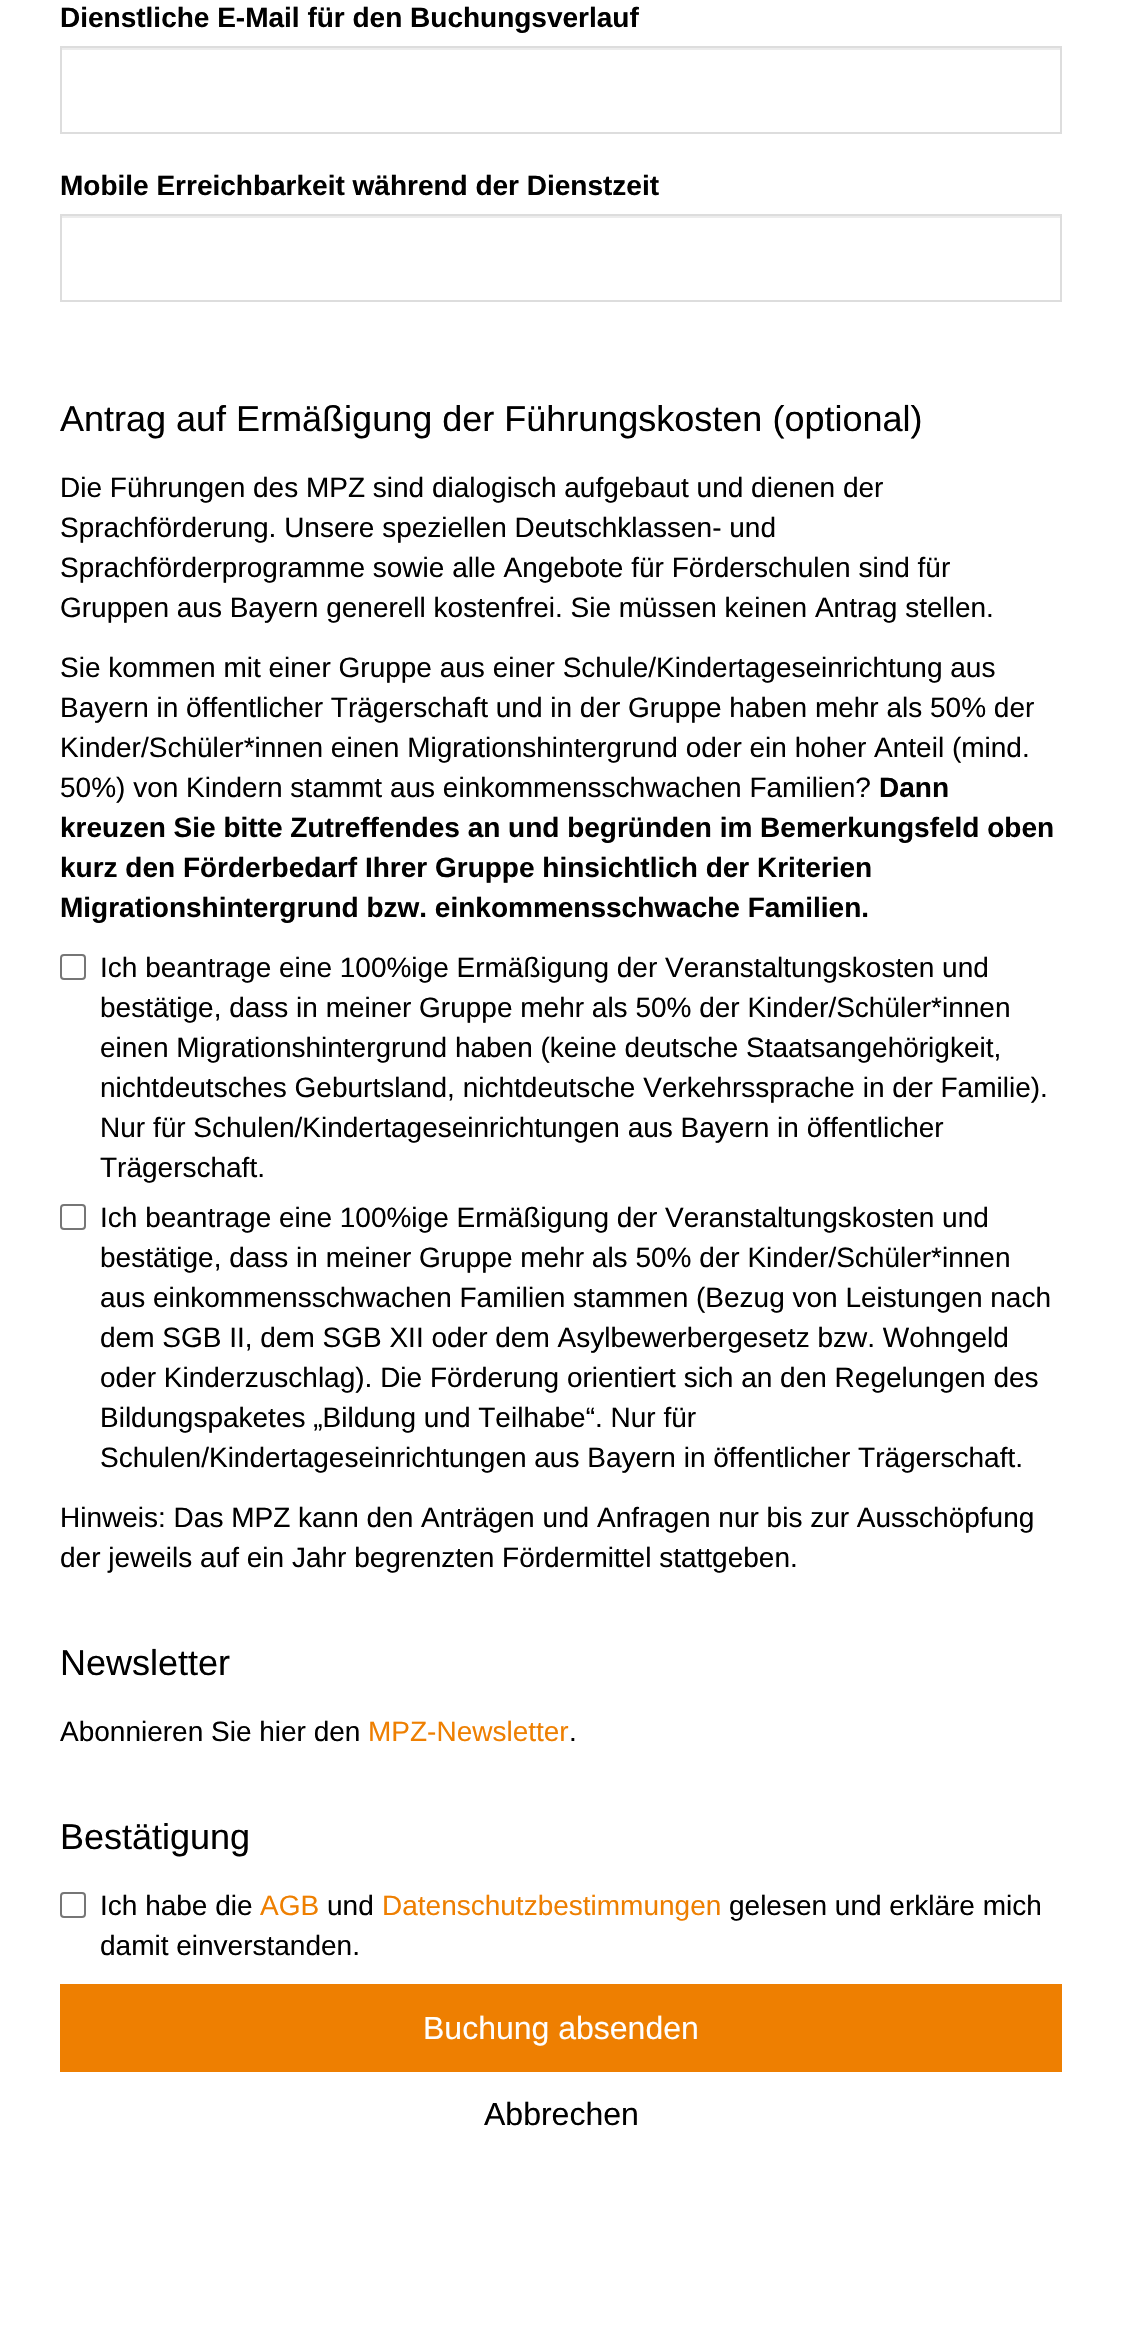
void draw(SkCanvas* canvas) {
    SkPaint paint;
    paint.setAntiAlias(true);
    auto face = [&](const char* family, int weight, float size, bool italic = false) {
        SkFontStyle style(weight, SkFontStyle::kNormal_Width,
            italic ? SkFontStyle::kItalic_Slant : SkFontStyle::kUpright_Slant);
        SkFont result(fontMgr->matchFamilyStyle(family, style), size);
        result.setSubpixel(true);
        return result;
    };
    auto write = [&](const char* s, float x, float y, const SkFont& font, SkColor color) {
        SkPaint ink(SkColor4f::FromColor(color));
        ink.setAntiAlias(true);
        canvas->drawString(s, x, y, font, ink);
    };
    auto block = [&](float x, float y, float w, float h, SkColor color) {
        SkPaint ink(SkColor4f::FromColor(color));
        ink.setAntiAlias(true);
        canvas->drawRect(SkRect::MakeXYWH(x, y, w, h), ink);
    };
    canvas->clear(SK_ColorWHITE);
    auto kFont1 = face("Liberation Sans", 700, 28);
    write("Dienstliche E-Mail für den Buchungsverlauf", 60, 27, kFont1, SK_ColorBLACK);
    block(62, 48, 998, 2, SkColorSetRGB(236, 236, 236));
    paint.setStyle(SkPaint::kStroke_Style);
    paint.setStrokeWidth(2);
    paint.setColor(SkColorSetRGB(221, 221, 221));
    canvas->drawRect(SkRect::MakeXYWH(61, 47, 1000, 86), paint);
    write("Mobile Erreichbarkeit während der Dienstzeit", 60, 195, kFont1, SK_ColorBLACK);
    block(62, 216, 998, 2, SkColorSetRGB(236, 236, 236));
    canvas->drawRect(SkRect::MakeXYWH(61, 215, 1000, 86), paint);
    auto kFont2 = face("Liberation Sans", 400, 36);
    write("Antrag auf Ermäßigung der Führungskosten (optional)", 60, 431, kFont2, SK_ColorBLACK);
    auto kFont3 = face("Liberation Sans", 400, 28);
    write("Die Führungen des MPZ sind dialogisch aufgebaut und dienen der", 60, 497, kFont3, SK_ColorBLACK);
    write("Sprachförderung. Unsere speziellen Deutschklassen- und", 60, 537, kFont3, SK_ColorBLACK);
    write("Sprachförderprogramme sowie alle Angebote für Förderschulen sind für", 60, 577, kFont3, SK_ColorBLACK);
    write("Gruppen aus Bayern generell kostenfrei. Sie müssen keinen Antrag stellen.", 60, 617, kFont3, SK_ColorBLACK);
    write("Sie kommen mit einer Gruppe aus einer Schule/Kindertageseinrichtung aus", 60, 677, kFont3, SK_ColorBLACK);
    write("Bayern in öffentlicher Trägerschaft und in der Gruppe haben mehr als 50% der", 60, 717, kFont3, SK_ColorBLACK);
    write("Kinder/Schüler*innen einen Migrationshintergrund oder ein hoher Anteil (mind.", 60, 757, kFont3, SK_ColorBLACK);
    write("50%) von Kindern stammt aus einkommensschwachen Familien?", 60, 797, kFont3, SK_ColorBLACK);
    write("Dann", 879, 797, kFont1, SK_ColorBLACK);
    write("kreuzen Sie bitte Zutreffendes an und begründen im Bemerkungsfeld oben", 60, 837, kFont1, SK_ColorBLACK);
    write("kurz den Förderbedarf Ihrer Gruppe hinsichtlich der Kriterien", 60, 877, kFont1, SK_ColorBLACK);
    write("Migrationshintergrund bzw. einkommensschwache Familien.", 60, 917, kFont1, SK_ColorBLACK);
    paint.setColor(SkColorSetRGB(118, 118, 118));
    canvas->drawRoundRect(SkRect::MakeXYWH(61, 955, 24, 24), 3, 3, paint);
    write("Ich beantrage eine 100%ige Ermäßigung der Veranstaltungskosten und", 100, 977, kFont3, SK_ColorBLACK);
    write("bestätige, dass in meiner Gruppe mehr als 50% der Kinder/Schüler*innen", 100, 1017, kFont3, SK_ColorBLACK);
    write("einen Migrationshintergrund haben (keine deutsche Staatsangehörigkeit,", 100, 1057, kFont3, SK_ColorBLACK);
    write("nichtdeutsches Geburtsland, nichtdeutsche Verkehrssprache in der Familie).", 100, 1097, kFont3, SK_ColorBLACK);
    write("Nur für Schulen/Kindertageseinrichtungen aus Bayern in öffentlicher", 100, 1137, kFont3, SK_ColorBLACK);
    write("Trägerschaft.", 100, 1177, kFont3, SK_ColorBLACK);
    canvas->drawRoundRect(SkRect::MakeXYWH(61, 1205, 24, 24), 3, 3, paint);
    write("Ich beantrage eine 100%ige Ermäßigung der Veranstaltungskosten und", 100, 1227, kFont3, SK_ColorBLACK);
    write("bestätige, dass in meiner Gruppe mehr als 50% der Kinder/Schüler*innen", 100, 1267, kFont3, SK_ColorBLACK);
    write("aus einkommensschwachen Familien stammen (Bezug von Leistungen nach", 100, 1307, kFont3, SK_ColorBLACK);
    write("dem SGB II, dem SGB XII oder dem Asylbewerbergesetz bzw. Wohngeld", 100, 1347, kFont3, SK_ColorBLACK);
    write("oder Kinderzuschlag). Die Förderung orientiert sich an den Regelungen des", 100, 1387, kFont3, SK_ColorBLACK);
    write("Bildungspaketes „Bildung und Teilhabe“. Nur für", 100, 1427, kFont3, SK_ColorBLACK);
    write("Schulen/Kindertageseinrichtungen aus Bayern in öffentlicher Trägerschaft.", 100, 1467, kFont3, SK_ColorBLACK);
    write("Hinweis: Das MPZ kann den Anträgen und Anfragen nur bis zur Ausschöpfung", 60, 1527, kFont3, SK_ColorBLACK);
    write("der jeweils auf ein Jahr begrenzten Fördermittel stattgeben.", 60, 1567, kFont3, SK_ColorBLACK);
    write("Newsletter", 60, 1675, kFont2, SK_ColorBLACK);
    write("Abonnieren Sie hier den", 60, 1741, kFont3, SK_ColorBLACK);
    write("MPZ-Newsletter", 368, 1741, kFont3, SkColorSetRGB(238, 127, 1));
    write(".", 569, 1741, kFont3, SK_ColorBLACK);
    write("Bestätigung", 60, 1849, kFont2, SK_ColorBLACK);
    canvas->drawRoundRect(SkRect::MakeXYWH(61, 1893, 24, 24), 3, 3, paint);
    write("Ich habe die", 100, 1915, kFont3, SK_ColorBLACK);
    write("AGB", 260, 1915, kFont3, SkColorSetRGB(238, 127, 1));
    write("und", 327, 1915, kFont3, SK_ColorBLACK);
    write("Datenschutzbestimmungen", 382, 1915, kFont3, SkColorSetRGB(238, 127, 1));
    write("gelesen und erkläre mich", 729, 1915, kFont3, SK_ColorBLACK);
    write("damit einverstanden.", 100, 1955, kFont3, SK_ColorBLACK);
    block(60, 1984, 1002, 88, SkColorSetRGB(238, 127, 1));
    auto kFont4 = face("Liberation Sans", 400, 32);
    write("Buchung absenden", 423, 2039, kFont4, SK_ColorWHITE);
    write("Abbrechen", 484, 2125, kFont4, SK_ColorBLACK);
}
